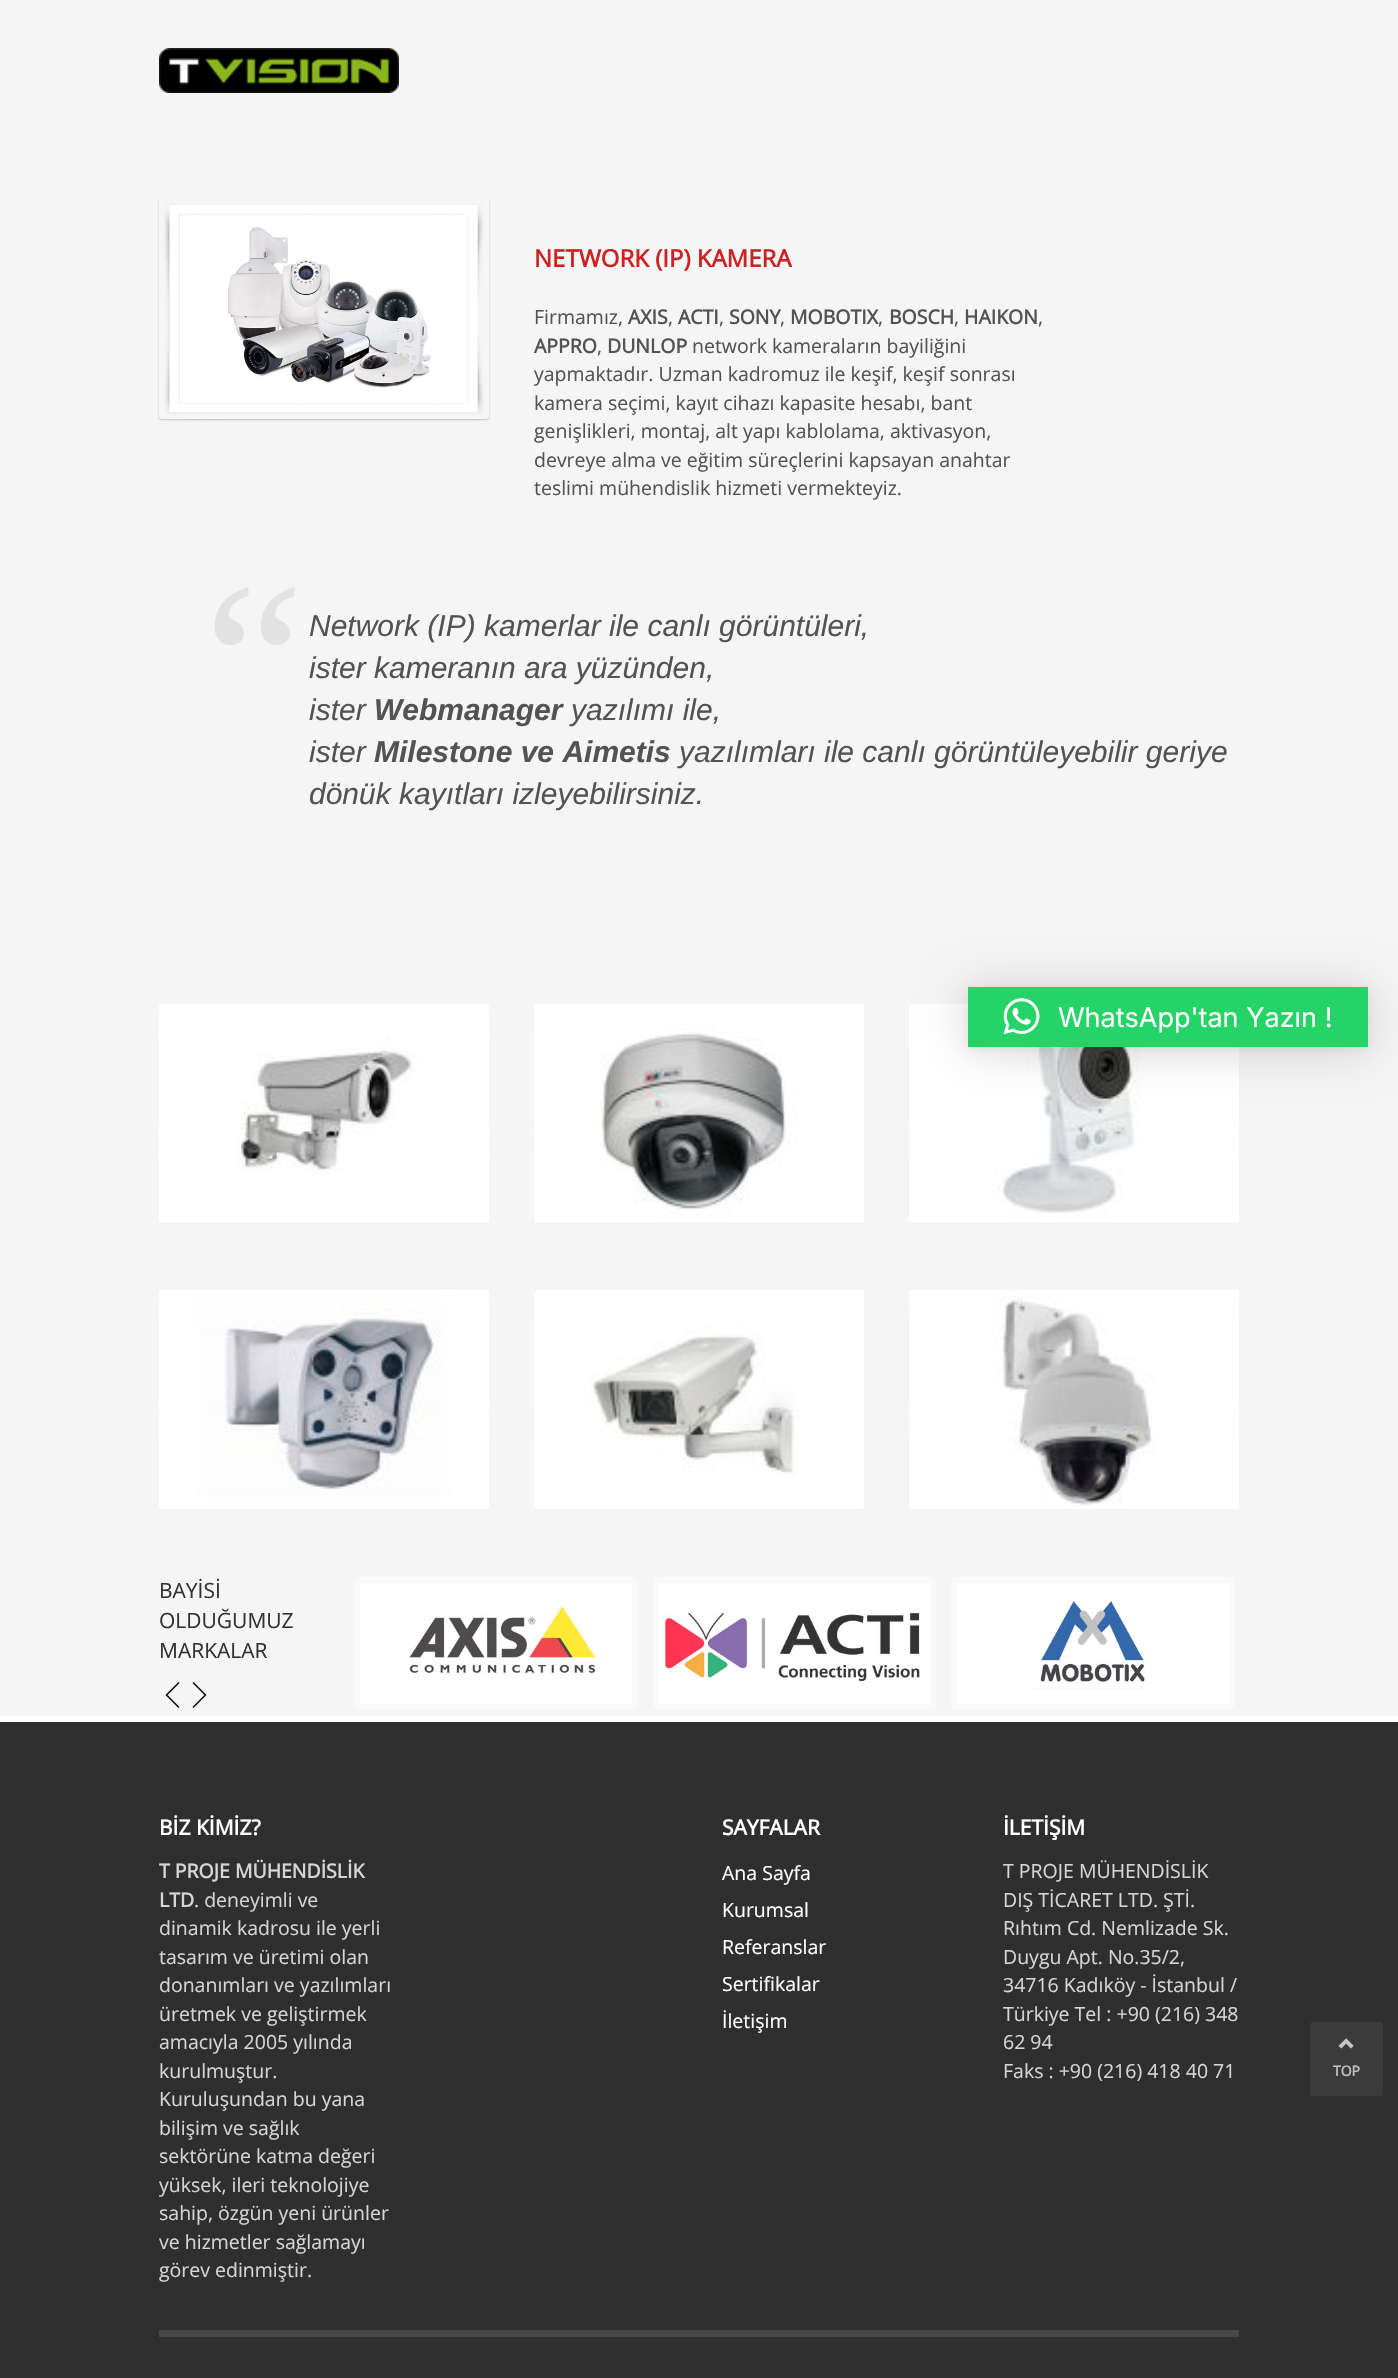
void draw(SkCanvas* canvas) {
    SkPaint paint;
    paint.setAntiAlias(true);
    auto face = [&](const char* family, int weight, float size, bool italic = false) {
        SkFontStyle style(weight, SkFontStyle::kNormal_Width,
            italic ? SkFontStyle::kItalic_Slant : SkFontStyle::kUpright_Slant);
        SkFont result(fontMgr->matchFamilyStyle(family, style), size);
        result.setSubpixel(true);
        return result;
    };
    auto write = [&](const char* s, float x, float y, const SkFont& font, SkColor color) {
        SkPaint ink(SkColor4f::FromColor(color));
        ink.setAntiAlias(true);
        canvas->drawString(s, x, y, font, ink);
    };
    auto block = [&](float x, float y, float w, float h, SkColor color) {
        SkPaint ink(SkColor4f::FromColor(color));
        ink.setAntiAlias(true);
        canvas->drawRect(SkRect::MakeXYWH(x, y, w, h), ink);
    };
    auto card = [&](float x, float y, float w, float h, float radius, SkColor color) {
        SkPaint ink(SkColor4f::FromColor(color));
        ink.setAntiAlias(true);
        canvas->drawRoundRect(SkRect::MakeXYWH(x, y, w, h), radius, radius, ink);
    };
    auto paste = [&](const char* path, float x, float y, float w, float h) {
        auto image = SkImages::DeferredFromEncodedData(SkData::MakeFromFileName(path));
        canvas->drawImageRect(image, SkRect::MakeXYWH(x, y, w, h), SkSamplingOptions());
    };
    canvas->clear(SkColorSetRGB(245, 245, 245));
    paste("pic1.png", 159, 48, 240, 45);
    canvas->save();
    canvas->clipPath(SkPathBuilder(SkPathFillType::kEvenOdd).moveTo(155, 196).lineTo(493, 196).lineTo(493, 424).lineTo(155, 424).close().moveTo(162, 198).lineTo(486, 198).cubicTo(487.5f, 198, 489, 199.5f, 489, 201).lineTo(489, 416).cubicTo(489, 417.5f, 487.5f, 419, 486, 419).lineTo(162, 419).cubicTo(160.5f, 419, 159, 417.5f, 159, 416).lineTo(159, 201).cubicTo(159, 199.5f, 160.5f, 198, 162, 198).close().detach(), true);
    paint.setColor(SkColorSetARGB(56, 0, 0, 0));
    paint.setMaskFilter(SkMaskFilter::MakeBlur(kNormal_SkBlurStyle, 1));
    canvas->drawRoundRect(SkRect::MakeXYWH(159, 200, 330, 220), 3, 3, paint);
    paint.setMaskFilter(nullptr);
    canvas->restore();
    paste("pic2.png", 159, 204, 330, 215);
    paint.setStyle(SkPaint::kStroke_Style);
    paint.setStrokeWidth(5);
    paint.setColor(SkColorSetARGB(38, 255, 255, 255));
    canvas->drawRoundRect(SkRect::MakeXYWH(161.5f, 200.5f, 325, 216), 2.5f, 2.5f, paint);
    auto kFont1 = face("Open Sans", 700, 24);
    write("NETWORK (IP) KAMERA", 534, 267, kFont1, SkColorSetRGB(205, 33, 34));
    auto kFont2 = face("Open Sans", 400, 19.5f);
    write("Firmamız,", 534, 324, kFont2, SkColorSetRGB(83, 83, 83));
    auto kFont3 = face("Open Sans", 700, 19.5f);
    write("AXIS", 628, 324, kFont3, SkColorSetRGB(83, 83, 83));
    write(",", 668, 324, kFont2, SkColorSetRGB(83, 83, 83));
    write("ACTI", 678, 324, kFont3, SkColorSetRGB(83, 83, 83));
    write(",", 719, 324, kFont2, SkColorSetRGB(83, 83, 83));
    write("SONY", 729, 324, kFont3, SkColorSetRGB(83, 83, 83));
    write(",", 780, 324, kFont2, SkColorSetRGB(83, 83, 83));
    write("MOBOTIX", 790, 324, kFont3, SkColorSetRGB(83, 83, 83));
    write(",", 878, 324, kFont2, SkColorSetRGB(83, 83, 83));
    write("BOSCH", 889, 324, kFont3, SkColorSetRGB(83, 83, 83));
    write(",", 954, 324, kFont2, SkColorSetRGB(83, 83, 83));
    write("HAIKON", 964, 324, kFont3, SkColorSetRGB(83, 83, 83));
    write(",", 1038, 324, kFont2, SkColorSetRGB(83, 83, 83));
    write("APPRO", 534, 353, kFont3, SkColorSetRGB(83, 83, 83));
    write(",", 597, 353, kFont2, SkColorSetRGB(83, 83, 83));
    write("DUNLOP", 607, 353, kFont3, SkColorSetRGB(83, 83, 83));
    write("network kameraların bayiliğini", 692, 353, kFont2, SkColorSetRGB(83, 83, 83));
    write("yapmaktadır. Uzman kadromuz ile keşif, keşif sonrası", 534, 381, kFont2, SkColorSetRGB(83, 83, 83));
    write("kamera seçimi, kayıt cihazı kapasite hesabı, bant", 534, 410, kFont2, SkColorSetRGB(83, 83, 83));
    write("genişlikleri, montaj, alt yapı kablolama, aktivasyon,", 534, 438, kFont2, SkColorSetRGB(83, 83, 83));
    write("devreye alma ve eğitim süreçlerini kapsayan anahtar", 534, 467, kFont2, SkColorSetRGB(83, 83, 83));
    write("teslimi mühendislik hizmeti vermekteyiz.", 534, 495, kFont2, SkColorSetRGB(83, 83, 83));
    auto kFont4 = face("Liberation Serif", 400, 225);
    write("“", 204, 737, kFont4, SkColorSetRGB(226, 226, 226));
    auto kFont5 = face("Liberation Sans", 400, 30, true);
    write("Network (IP) kamerlar ile canlı görüntüleri,", 309, 636, kFont5, SkColorSetRGB(83, 83, 83));
    write("ister kameranın ara yüzünden,", 309, 678, kFont5, SkColorSetRGB(83, 83, 83));
    write("ister", 309, 720, kFont5, SkColorSetRGB(83, 83, 83));
    auto kFont6 = face("Liberation Sans", 700, 30, true);
    write("Webmanager", 374, 720, kFont6, SkColorSetRGB(83, 83, 83));
    write("yazılımı ile,", 571, 720, kFont5, SkColorSetRGB(83, 83, 83));
    write("ister", 309, 762, kFont5, SkColorSetRGB(83, 83, 83));
    write("Milestone ve Aimetis", 374, 762, kFont6, SkColorSetRGB(83, 83, 83));
    write("yazılımları ile canlı görüntüleyebilir geriye", 679, 762, kFont5, SkColorSetRGB(83, 83, 83));
    write("dönük kayıtları izleyebilirsiniz.", 309, 804, kFont5, SkColorSetRGB(83, 83, 83));
    paste("pic3.png", 159, 1004, 330, 218);
    paste("pic4.png", 534, 1004, 330, 218);
    paste("pic5.png", 909, 1004, 330, 218);
    paste("pic6.png", 159, 1290, 330, 219);
    paste("pic7.png", 534, 1290, 330, 219);
    paste("pic8.png", 909, 1290, 330, 219);
    canvas->drawRoundRect(SkRect::MakeXYWH(911.5f, 1292.5f, 325, 214), 2.5f, 2.5f, paint);
    auto kFont7 = face("Open Sans", 400, 21);
    write("BAYİSİ", 159, 1598, kFont7, SkColorSetRGB(50, 50, 50));
    write("OLDUĞUMUZ", 159, 1628, kFont7, SkColorSetRGB(50, 50, 50));
    write("MARKALAR", 159, 1658, kFont7, SkColorSetRGB(50, 50, 50));
    paint.setStrokeWidth(1.7f);
    paint.setStrokeCap(SkPaint::kRound_Cap);
    paint.setStrokeJoin(SkPaint::kRound_Join);
    paint.setColor(SkColorSetRGB(20, 20, 20));
    canvas->drawPath(SkPathBuilder().moveTo(178.5f, 1683).lineTo(166.5f, 1695).lineTo(178.5f, 1707).moveTo(193.5f, 1683).lineTo(205.5f, 1695).lineTo(193.5f, 1707).detach(), paint);
    paint.setStyle(SkPaint::kFill_Style);
    paint.setColor(SK_ColorWHITE);
    canvas->drawRoundRect(SkRect::MakeXYWH(357, 1580, 278, 127), 2, 2, paint);
    paint.setStyle(SkPaint::kStroke_Style);
    paint.setStrokeWidth(6);
    paint.setStrokeCap(SkPaint::kButt_Cap);
    paint.setStrokeJoin(SkPaint::kMiter_Join);
    paint.setColor(SkColorSetRGB(249, 249, 249));
    canvas->drawRoundRect(SkRect::MakeXYWH(357, 1580, 278, 127), 2, 2, paint);
    paste("pic9.png", 409, 1603, 190, 70);
    paint.setStyle(SkPaint::kFill_Style);
    paint.setColor(SK_ColorWHITE);
    canvas->drawRoundRect(SkRect::MakeXYWH(656, 1580, 277, 127), 2, 2, paint);
    paint.setStyle(SkPaint::kStroke_Style);
    paint.setColor(SkColorSetRGB(249, 249, 249));
    canvas->drawRoundRect(SkRect::MakeXYWH(656, 1580, 277, 127), 2, 2, paint);
    paste("pic10.png", 664, 1612, 256, 70);
    paint.setStyle(SkPaint::kFill_Style);
    paint.setColor(SK_ColorWHITE);
    canvas->drawRoundRect(SkRect::MakeXYWH(954, 1580, 278, 127), 2, 2, paint);
    paint.setStyle(SkPaint::kStroke_Style);
    paint.setColor(SkColorSetRGB(249, 249, 249));
    canvas->drawRoundRect(SkRect::MakeXYWH(954, 1580, 278, 127), 2, 2, paint);
    paste("pic11.png", 1032, 1598, 114, 91);
    block(0, 1722, 1398, 656, SkColorSetRGB(47, 47, 47));
    block(0, 1716, 1398, 6, SK_ColorWHITE);
    auto kFont8 = face("Open Sans", 700, 21);
    write("BİZ KİMİZ?", 159, 1835, kFont8, SK_ColorWHITE);
    write("T PROJE MÜHENDİSLİK", 159, 1878, kFont3, SkColorSetRGB(213, 213, 213));
    write("LTD", 159, 1907, kFont3, SkColorSetRGB(213, 213, 213));
    write(". deneyimli ve", 194, 1907, kFont2, SkColorSetRGB(213, 213, 213));
    write("dinamik kadrosu ile yerli", 159, 1935, kFont2, SkColorSetRGB(213, 213, 213));
    write("tasarım ve üretimi olan", 159, 1964, kFont2, SkColorSetRGB(213, 213, 213));
    write("donanımları ve yazılımları", 159, 1992, kFont2, SkColorSetRGB(213, 213, 213));
    write("üretmek ve geliştirmek", 159, 2021, kFont2, SkColorSetRGB(213, 213, 213));
    write("amacıyla 2005 yılında", 159, 2049, kFont2, SkColorSetRGB(213, 213, 213));
    write("kurulmuştur.", 159, 2078, kFont2, SkColorSetRGB(213, 213, 213));
    write("Kuruluşundan bu yana", 159, 2106, kFont2, SkColorSetRGB(213, 213, 213));
    write("bilişim ve sağlık", 159, 2135, kFont2, SkColorSetRGB(213, 213, 213));
    write("sektörüne katma değeri", 159, 2163, kFont2, SkColorSetRGB(213, 213, 213));
    write("yüksek, ileri teknolojiye", 159, 2192, kFont2, SkColorSetRGB(213, 213, 213));
    write("sahip, özgün yeni ürünler", 159, 2220, kFont2, SkColorSetRGB(213, 213, 213));
    write("ve hizmetler sağlamayı", 159, 2249, kFont2, SkColorSetRGB(213, 213, 213));
    write("görev edinmiştir.", 159, 2277, kFont2, SkColorSetRGB(213, 213, 213));
    write("SAYFALAR", 722, 1835, kFont8, SK_ColorWHITE);
    write("Ana Sayfa", 722, 1880, kFont2, SK_ColorWHITE);
    write("Kurumsal", 722, 1917, kFont2, SK_ColorWHITE);
    write("Referanslar", 722, 1954, kFont2, SK_ColorWHITE);
    write("Sertifikalar", 722, 1991, kFont2, SK_ColorWHITE);
    write("İletişim", 722, 2028, kFont2, SK_ColorWHITE);
    write("İLETİŞİM", 1003, 1835, kFont8, SK_ColorWHITE);
    write("T PROJE MÜHENDİSLİK", 1003, 1878, kFont2, SkColorSetRGB(213, 213, 213));
    write("DIŞ TİCARET LTD. ŞTİ.", 1003, 1907, kFont2, SkColorSetRGB(213, 213, 213));
    write("Rıhtım Cd. Nemlizade Sk.", 1003, 1935, kFont2, SkColorSetRGB(213, 213, 213));
    write("Duygu Apt. No.35/2,", 1003, 1964, kFont2, SkColorSetRGB(213, 213, 213));
    write("34716 Kadıköy - İstanbul /", 1003, 1992, kFont2, SkColorSetRGB(213, 213, 213));
    write("Türkiye Tel : +90 (216) 348", 1003, 2021, kFont2, SkColorSetRGB(213, 213, 213));
    write("62 94", 1003, 2049, kFont2, SkColorSetRGB(213, 213, 213));
    write("Faks : +90 (216) 418 40 71", 1003, 2078, kFont2, SkColorSetRGB(213, 213, 213));
    block(159, 2330, 1080, 7, SkColorSetRGB(72, 72, 72));
    paint.setStyle(SkPaint::kFill_Style);
    paint.setColor(SkColorSetARGB(41, 0, 0, 0));
    paint.setMaskFilter(SkMaskFilter::MakeBlur(kNormal_SkBlurStyle, 24));
    canvas->drawRect(SkRect::MakeXYWH(968, 990, 400, 60), paint);
    paint.setMaskFilter(nullptr);
    paint.setColor(SkColorSetARGB(15, 0, 0, 0));
    paint.setMaskFilter(SkMaskFilter::MakeBlur(kNormal_SkBlurStyle, 4.5f));
    canvas->drawRect(SkRect::MakeXYWH(968, 989, 400, 60), paint);
    paint.setMaskFilter(nullptr);
    block(968, 987, 400, 60, SkColorSetRGB(37, 211, 102));
    paste("pic12.png", 1003, 998, 37, 37);
    auto kFont9 = face("Inter", 400, 27);
    write("WhatsApp'tan Yazın !", 1058, 1027, kFont9, SK_ColorWHITE);
    card(1310, 2022, 73, 74, 3, SkColorSetRGB(59, 59, 59));
    paste("pic13.png", 1338, 2038, 16, 11);
    auto kFont10 = face("Open Sans", 700, 14);
    write("TOP", 1333, 2076, kFont10, SkColorSetRGB(193, 193, 193));
}
